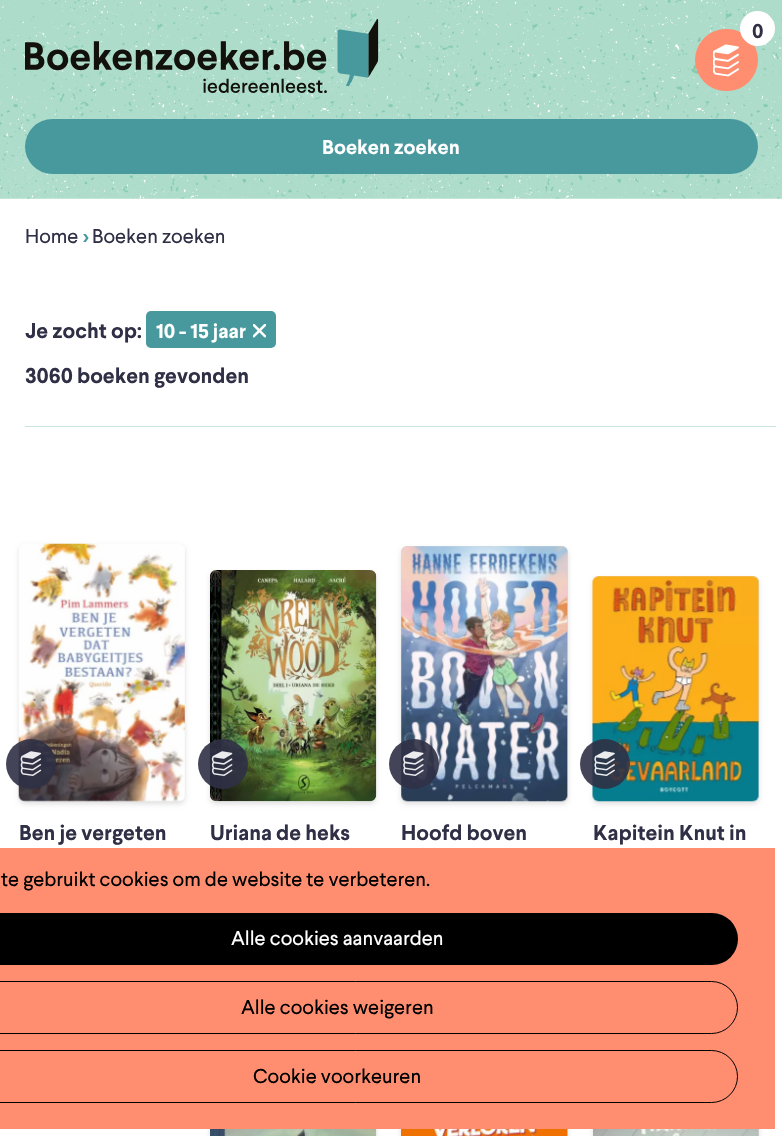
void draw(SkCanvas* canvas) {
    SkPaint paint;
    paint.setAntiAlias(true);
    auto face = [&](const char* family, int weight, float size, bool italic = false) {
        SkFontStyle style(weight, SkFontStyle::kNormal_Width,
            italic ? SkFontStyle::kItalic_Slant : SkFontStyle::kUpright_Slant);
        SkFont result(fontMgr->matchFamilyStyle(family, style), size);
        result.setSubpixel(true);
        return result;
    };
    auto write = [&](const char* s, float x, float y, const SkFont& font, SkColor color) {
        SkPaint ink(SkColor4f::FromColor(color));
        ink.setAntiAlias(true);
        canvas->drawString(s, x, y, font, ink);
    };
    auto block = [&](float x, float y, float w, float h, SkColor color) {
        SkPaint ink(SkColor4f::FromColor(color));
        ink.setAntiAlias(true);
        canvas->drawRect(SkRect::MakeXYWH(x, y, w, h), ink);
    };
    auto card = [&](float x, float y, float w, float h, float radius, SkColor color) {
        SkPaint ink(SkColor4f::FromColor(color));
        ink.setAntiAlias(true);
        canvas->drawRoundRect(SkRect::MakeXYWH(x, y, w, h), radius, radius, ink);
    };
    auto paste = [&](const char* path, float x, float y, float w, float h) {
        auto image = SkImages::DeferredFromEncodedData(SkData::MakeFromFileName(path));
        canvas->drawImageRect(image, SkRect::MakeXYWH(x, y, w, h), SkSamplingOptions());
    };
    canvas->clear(SK_ColorWHITE);
    paste("pic1.png", 0, 0, 782, 199);
    paste("pic2.png", 25, 19, 354, 74);
    card(695, 29, 63, 62, 31, SkColorSetRGB(255, 141, 112));
    paint.setColor(SK_ColorWHITE);
    canvas->drawCircle(757.5f, 28.5f, 17.5f, paint);
    auto kFont1 = face("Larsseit", 700, 20);
    write("0", 752, 38, kFont1, SkColorSetRGB(47, 48, 69));
    paste("pic3.png", 713, 44, 26, 33);
    card(25, 119, 733, 55, 27.5f, SkColorSetRGB(72, 153, 157));
    write("Boeken zoeken", 322, 154, kFont1, SK_ColorWHITE);
    auto kFont2 = face("Larsseit", 400, 20);
    write("Home", 25, 243, kFont2, SkColorSetRGB(47, 48, 69));
    write("›", 83, 243, kFont1, SkColorSetRGB(72, 153, 157));
    write("Boeken zoeken", 92, 243, kFont2, SkColorSetRGB(47, 48, 69));
    auto kFont3 = face("Larsseit", 700, 21.25f);
    write("Je zocht op:", 25, 338, kFont3, SkColorSetRGB(47, 48, 69));
    card(146, 311, 130, 37, 5, SkColorSetRGB(72, 153, 157));
    paste("pic4.png", 253, 324, 13, 14);
    write("10 - 15 jaar", 156, 338, kFont1, SK_ColorWHITE);
    write("3060 boeken gevonden", 25, 383, kFont3, SkColorSetRGB(47, 48, 69));
    block(25, 426, 751, 1, SkColorSetRGB(200, 229, 218));
    paint.setColor(SkColorSetARGB(31, 0, 0, 0));
    paint.setMaskFilter(SkMaskFilter::MakeBlur(kNormal_SkBlurStyle, 2.5f));
    canvas->drawRoundRect(SkRect::MakeXYWH(19, 546, 166, 258), 6, 6, paint);
    paint.setMaskFilter(nullptr);
    paste("pic5.png", 18, 543, 167, 259);
    paint.setColor(SkColorSetARGB(230, 47, 48, 69));
    canvas->drawCircle(31, 764, 25, paint);
    paste("pic6.png", 20, 751, 22, 25);
    write("Ben je vergeten", 19, 840, kFont3, SkColorSetRGB(47, 48, 69));
    paint.setColor(SkColorSetARGB(31, 0, 0, 0));
    paint.setMaskFilter(SkMaskFilter::MakeBlur(kNormal_SkBlurStyle, 2.5f));
    canvas->drawRoundRect(SkRect::MakeXYWH(210, 573, 166, 231), 6, 6, paint);
    paint.setMaskFilter(nullptr);
    card(210, 570, 166, 231, 6, SkColorSetRGB(216, 216, 216));
    paste("pic7.png", 210, 570, 167, 232);
    paint.setColor(SkColorSetARGB(230, 47, 48, 69));
    canvas->drawCircle(223, 764, 25, paint);
    paste("pic8.png", 211, 751, 22, 25);
    write("Uriana de heks", 210, 840, kFont3, SkColorSetRGB(47, 48, 69));
    paint.setColor(SkColorSetARGB(31, 0, 0, 0));
    paint.setMaskFilter(SkMaskFilter::MakeBlur(kNormal_SkBlurStyle, 2.5f));
    canvas->drawRoundRect(SkRect::MakeXYWH(401, 549, 167, 255), 6, 6, paint);
    paint.setMaskFilter(nullptr);
    card(401, 546, 167, 255, 6, SkColorSetRGB(216, 216, 216));
    paste("pic9.png", 401, 546, 167, 256);
    paint.setColor(SkColorSetARGB(230, 47, 48, 69));
    canvas->drawCircle(414, 764, 25, paint);
    paste("pic10.png", 403, 751, 21, 25);
    write("Hoofd boven", 401, 840, kFont3, SkColorSetRGB(47, 48, 69));
    paint.setColor(SkColorSetARGB(31, 0, 0, 0));
    paint.setMaskFilter(SkMaskFilter::MakeBlur(kNormal_SkBlurStyle, 2.5f));
    canvas->drawRoundRect(SkRect::MakeXYWH(593, 579, 166, 225), 6, 6, paint);
    paint.setMaskFilter(nullptr);
    card(593, 576, 166, 225, 6, SkColorSetRGB(216, 216, 216));
    paste("pic11.png", 592, 576, 167, 226);
    paint.setColor(SkColorSetARGB(230, 47, 48, 69));
    canvas->drawCircle(605, 764, 25, paint);
    paste("pic12.png", 594, 751, 21, 25);
    write("Kapitein Knut in", 593, 840, kFont3, SkColorSetRGB(47, 48, 69));
    paint.setColor(SkColorSetARGB(31, 0, 0, 0));
    paint.setMaskFilter(SkMaskFilter::MakeBlur(kNormal_SkBlurStyle, 2.5f));
    canvas->drawRoundRect(SkRect::MakeXYWH(210, 1104, 166, 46), 6, 6, paint);
    paint.setMaskFilter(nullptr);
    paste("pic13.png", 210, 1129, 167, 7);
    paint.setMaskFilter(SkMaskFilter::MakeBlur(kNormal_SkBlurStyle, 2.5f));
    canvas->drawRoundRect(SkRect::MakeXYWH(401, 1069, 167, 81), 6, 6, paint);
    paint.setMaskFilter(nullptr);
    block(567, 1129, 1, 7, SkColorSetRGB(216, 216, 216));
    paste("pic14.png", 401, 1129, 167, 7);
    paint.setMaskFilter(SkMaskFilter::MakeBlur(kNormal_SkBlurStyle, 2.5f));
    canvas->drawRoundRect(SkRect::MakeXYWH(593, 1063, 166, 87), 6, 6, paint);
    paint.setMaskFilter(nullptr);
    block(758, 1129, 1, 7, SkColorSetRGB(216, 216, 216));
    paste("pic15.png", 593, 1129, 166, 7);
    block(0, 848, 775, 281, SkColorSetRGB(255, 141, 112));
    write("te gebruikt cookies om de website te verbeteren.", 1, 886, kFont2, SK_ColorBLACK);
    card(-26, 913, 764, 52, 26, SK_ColorBLACK);
    write("Alle cookies aanvaarden", 231, 945, kFont2, SK_ColorWHITE);
    paint.setStyle(SkPaint::kStroke_Style);
    paint.setStrokeWidth(1);
    paint.setColor(SK_ColorBLACK);
    canvas->drawRoundRect(SkRect::MakeXYWH(-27.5f, 981.5f, 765, 52), 26, 26, paint);
    write("Alle cookies weigeren", 241, 1014, kFont2, SK_ColorBLACK);
    canvas->drawRoundRect(SkRect::MakeXYWH(-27.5f, 1050.5f, 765, 52), 26, 26, paint);
    write("Cookie voorkeuren", 253, 1083, kFont2, SK_ColorBLACK);
}
